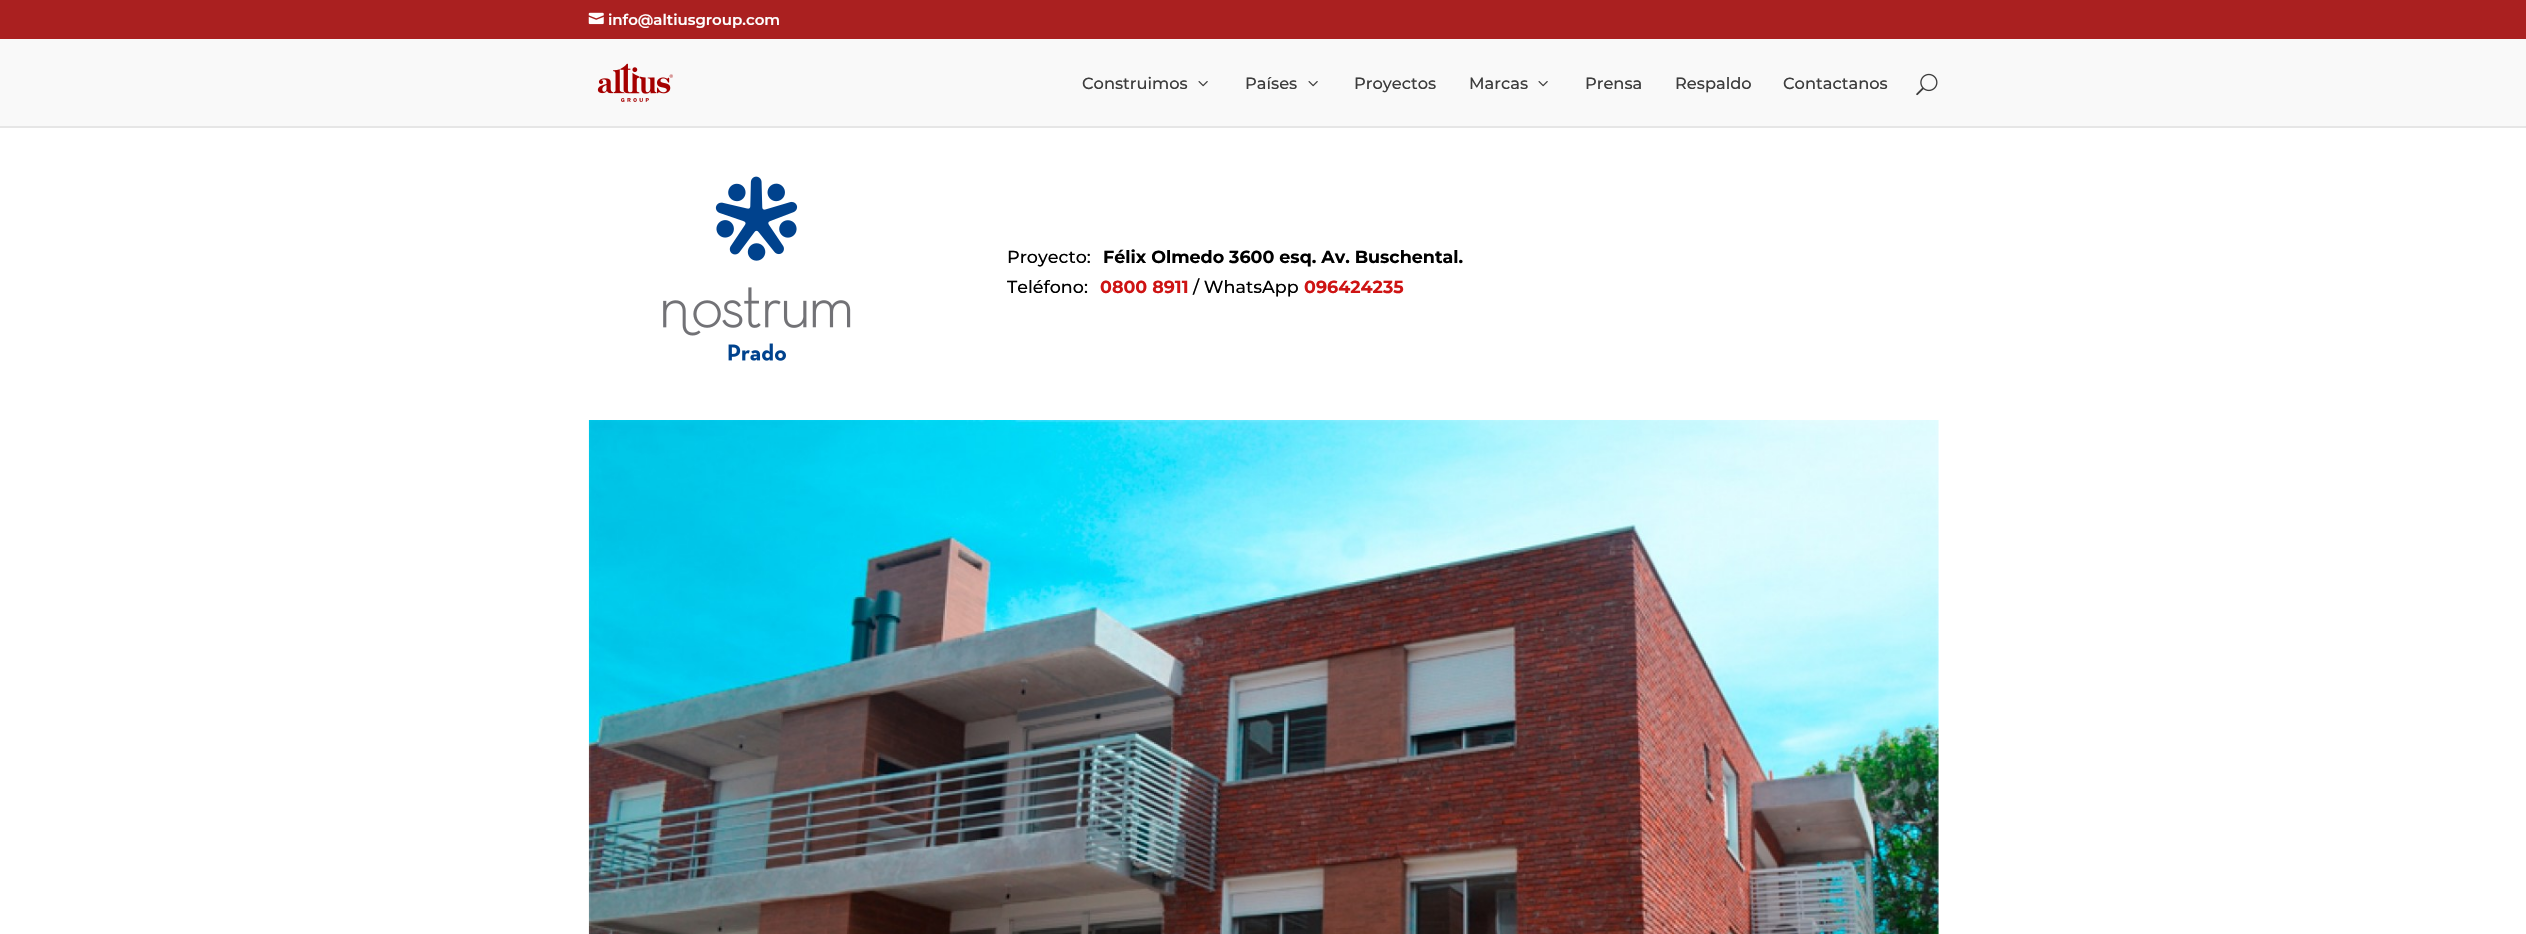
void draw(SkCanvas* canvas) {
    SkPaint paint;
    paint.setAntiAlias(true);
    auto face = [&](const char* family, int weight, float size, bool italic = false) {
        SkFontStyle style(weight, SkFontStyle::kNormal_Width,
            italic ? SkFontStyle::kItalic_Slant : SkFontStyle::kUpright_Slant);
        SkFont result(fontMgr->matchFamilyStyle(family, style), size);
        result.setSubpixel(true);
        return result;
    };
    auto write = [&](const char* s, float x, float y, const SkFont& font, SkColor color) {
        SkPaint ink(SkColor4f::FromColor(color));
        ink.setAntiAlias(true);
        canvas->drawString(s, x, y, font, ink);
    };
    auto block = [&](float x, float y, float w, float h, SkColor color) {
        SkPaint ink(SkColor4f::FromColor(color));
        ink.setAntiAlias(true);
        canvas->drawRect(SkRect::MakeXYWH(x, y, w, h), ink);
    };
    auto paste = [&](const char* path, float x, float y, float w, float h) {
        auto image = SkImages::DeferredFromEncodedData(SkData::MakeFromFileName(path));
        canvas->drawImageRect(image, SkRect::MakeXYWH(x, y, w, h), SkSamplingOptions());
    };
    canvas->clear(SK_ColorWHITE);
    block(0, 0, 2526, 39, SkColorSetRGB(170, 32, 32));
    paste("pic1.png", 588, 12, 16, 13);
    auto kFont1 = face("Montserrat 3", 100, 15);
    write("info@altiusgroup.com", 608, 25, kFont1, SK_ColorWHITE);
    block(0, 126, 2526, 2, SkColorSetRGB(230, 230, 230));
    block(0, 39, 2526, 87, SkColorSetRGB(249, 249, 249));
    paste("pic2.png", 597, 63, 76, 39);
    auto kFont2 = face("Montserrat", 100, 16.25f);
    write("Construimos", 1082, 89, kFont2, SkColorSetRGB(61, 61, 61));
    paste("pic3.png", 1198, 81, 10, 6);
    write("Países", 1245, 89, kFont2, SkColorSetRGB(61, 61, 61));
    paste("pic3.png", 1308, 81, 10, 6);
    write("Proyectos", 1354, 89, kFont2, SkColorSetRGB(61, 61, 61));
    write("Marcas", 1469, 89, kFont2, SkColorSetRGB(61, 61, 61));
    paste("pic3.png", 1538, 81, 10, 6);
    write("Prensa", 1585, 89, kFont2, SkColorSetRGB(61, 61, 61));
    write("Respaldo", 1675, 89, kFont2, SkColorSetRGB(61, 61, 61));
    write("Contactanos", 1783, 89, kFont2, SkColorSetRGB(61, 61, 61));
    paste("pic4.png", 1916, 73, 22, 23);
    paste("pic5.png", 663, 176, 188, 185);
    auto kFont3 = face("Montserrat", 100, 17.5f);
    write("Proyecto:", 1007, 263, kFont3, SK_ColorBLACK);
    auto kFont4 = face("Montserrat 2", 100, 17.5f);
    write("Félix Olmedo 3600 esq. Av. Buschental.", 1103, 263, kFont4, SK_ColorBLACK);
    write("Teléfono:", 1007, 293, kFont3, SK_ColorBLACK);
    write("0800 8911", 1100, 293, kFont4, SkColorSetRGB(206, 20, 20));
    write("/ WhatsApp", 1193, 293, kFont3, SK_ColorBLACK);
    write("096424235", 1304, 293, kFont4, SkColorSetRGB(206, 20, 20));
    paste("pic6.png", 588, 420, 1351, 514);
}
